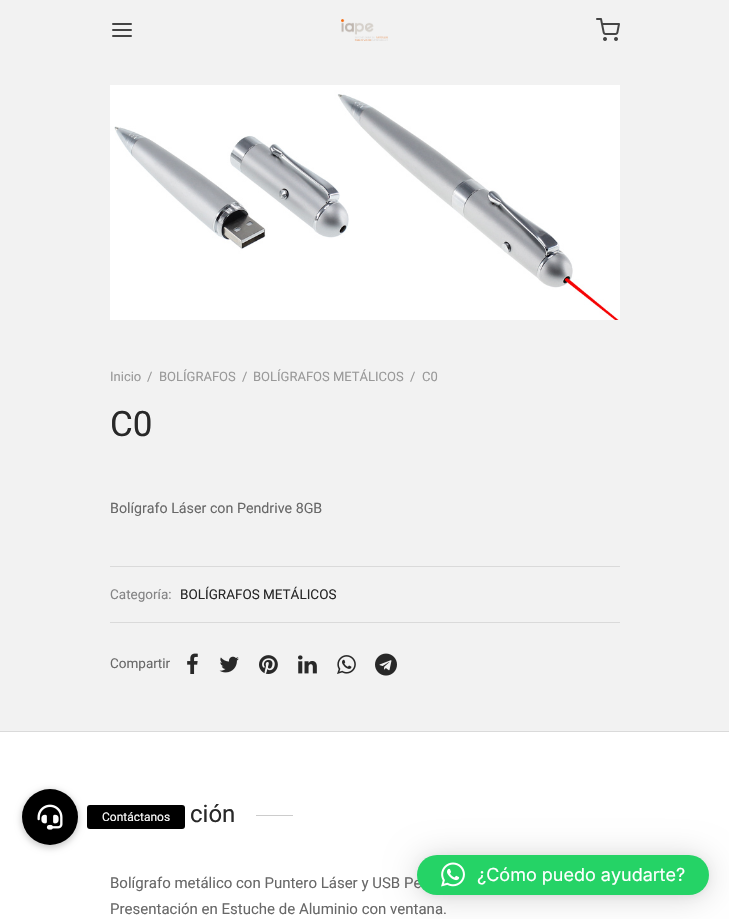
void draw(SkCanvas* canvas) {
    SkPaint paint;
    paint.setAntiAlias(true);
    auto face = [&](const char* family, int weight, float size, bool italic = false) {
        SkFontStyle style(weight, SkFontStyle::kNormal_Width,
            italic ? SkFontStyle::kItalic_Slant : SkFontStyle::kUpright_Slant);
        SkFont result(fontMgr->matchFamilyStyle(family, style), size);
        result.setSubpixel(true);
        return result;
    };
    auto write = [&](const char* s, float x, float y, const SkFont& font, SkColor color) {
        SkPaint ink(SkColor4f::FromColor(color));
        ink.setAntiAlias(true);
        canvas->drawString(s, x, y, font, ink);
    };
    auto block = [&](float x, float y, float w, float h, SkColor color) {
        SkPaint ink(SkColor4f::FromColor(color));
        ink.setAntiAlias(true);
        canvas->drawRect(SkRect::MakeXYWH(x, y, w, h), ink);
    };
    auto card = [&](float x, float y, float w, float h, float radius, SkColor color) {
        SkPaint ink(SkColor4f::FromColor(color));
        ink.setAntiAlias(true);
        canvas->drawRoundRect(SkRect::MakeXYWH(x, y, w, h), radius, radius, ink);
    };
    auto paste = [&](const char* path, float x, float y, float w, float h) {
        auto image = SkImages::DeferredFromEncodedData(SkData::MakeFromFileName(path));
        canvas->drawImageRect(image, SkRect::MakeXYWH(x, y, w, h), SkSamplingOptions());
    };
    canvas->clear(SK_ColorWHITE);
    block(0, 0, 729, 731, SkColorSetRGB(242, 242, 242));
    paint.setStyle(SkPaint::kStroke_Style);
    paint.setStrokeWidth(2);
    paint.setStrokeCap(SkPaint::kRound_Cap);
    paint.setStrokeJoin(SkPaint::kRound_Join);
    paint.setColor(SkColorSetRGB(68, 68, 68));
    canvas->drawPath(SkPathBuilder().moveTo(113, 30).lineTo(131, 30).moveTo(113, 24).lineTo(131, 24).moveTo(113, 36).lineTo(131, 36).detach(), paint);
    paste("pic1.png", 341, 19, 47, 22);
    paste("pic2.png", 596, 18, 24, 23);
    block(0, 731, 729, 1, SkColorSetRGB(218, 218, 218));
    paste("pic3.png", 110, 85, 510, 235);
    auto kFont1 = face("Roboto", 400, 13);
    write("Inicio", 110, 381, kFont1, SkColorSetRGB(153, 153, 153));
    write("/", 147, 381, kFont1, SkColorSetRGB(153, 153, 153));
    write("BOLÍGRAFOS", 159, 381, kFont1, SkColorSetRGB(153, 153, 153));
    write("/", 242, 381, kFont1, SkColorSetRGB(153, 153, 153));
    write("BOLÍGRAFOS METÁLICOS", 253, 381, kFont1, SkColorSetRGB(153, 153, 153));
    write("/", 410, 381, kFont1, SkColorSetRGB(153, 153, 153));
    write("C0", 422, 381, kFont1, SkColorSetRGB(153, 153, 153));
    auto kFont2 = face("Roboto", 400, 35);
    write("C0", 110, 436, kFont2, SkColorSetRGB(40, 40, 40));
    auto kFont3 = face("Roboto", 400, 14.25f);
    write("Bolígrafo Láser con Pendrive 8GB", 110, 513, kFont3, SkColorSetRGB(104, 104, 104));
    block(110, 566, 510, 1, SkColorSetRGB(218, 218, 218));
    auto kFont4 = face("Roboto", 400, 13.5f);
    write("Categoría:", 110, 599, kFont4, SkColorSetRGB(132, 132, 133));
    write("BOLÍGRAFOS METÁLICOS", 180, 599, kFont4, SkColorSetRGB(40, 40, 40));
    block(110, 622, 510, 1, SkColorSetRGB(218, 218, 218));
    write("Compartir", 110, 668, kFont4, SkColorSetRGB(104, 104, 104));
    paste("pic4.png", 187, 653, 11, 21);
    paste("pic5.png", 219, 656, 20, 17);
    paste("pic6.png", 259, 655, 19, 19);
    paste("pic7.png", 298, 655, 19, 19);
    paste("pic8.png", 337, 655, 19, 19);
    paste("pic9.png", 375, 653, 22, 23);
    auto kFont5 = face("Roboto", 400, 24);
    write("ción", 190, 822, kFont5, SkColorSetRGB(40, 40, 40));
    block(256, 815, 37, 1, SkColorSetRGB(204, 204, 204));
    auto kFont6 = face("Roboto", 400, 15);
    write("Bolígrafo metálico con Puntero Láser y USB Pe", 110, 888, kFont6, SkColorSetRGB(104, 104, 104));
    write("Presentación en Estuche de Aluminio con ventana.", 110, 914, kFont6, SkColorSetRGB(104, 104, 104));
    paint.setStyle(SkPaint::kFill_Style);
    paint.setColor(SkColorSetARGB(51, 0, 0, 0));
    paint.setMaskFilter(SkMaskFilter::MakeBlur(kNormal_SkBlurStyle, 3));
    canvas->drawRoundRect(SkRect::MakeXYWH(21, 790, 58, 58), 29, 29, paint);
    paint.setMaskFilter(nullptr);
    paint.setColor(SK_ColorBLACK);
    canvas->drawCircle(50, 817, 28, paint);
    paste("pic10.png", 37, 804, 26, 26);
    card(87, 805, 98, 24, 3, SK_ColorBLACK);
    auto kFont7 = face("Roboto", 400, 12);
    write("Contáctanos", 102, 821, kFont7, SK_ColorWHITE);
    paint.setColor(SkColorSetARGB(41, 0, 0, 0));
    paint.setMaskFilter(SkMaskFilter::MakeBlur(kNormal_SkBlurStyle, 16));
    canvas->drawRoundRect(SkRect::MakeXYWH(417, 857, 292, 40), 20, 20, paint);
    paint.setMaskFilter(nullptr);
    paint.setColor(SkColorSetARGB(15, 0, 0, 0));
    paint.setMaskFilter(SkMaskFilter::MakeBlur(kNormal_SkBlurStyle, 3));
    canvas->drawRoundRect(SkRect::MakeXYWH(417, 856, 292, 40), 20, 20, paint);
    paint.setMaskFilter(nullptr);
    card(417, 855, 292, 40, 20, SkColorSetRGB(37, 211, 102));
    paste("pic11.png", 441, 862, 24, 25);
    auto kFont8 = face("Inter", 400, 18);
    write("¿Cómo puedo ayudarte?", 477, 881, kFont8, SK_ColorWHITE);
}
